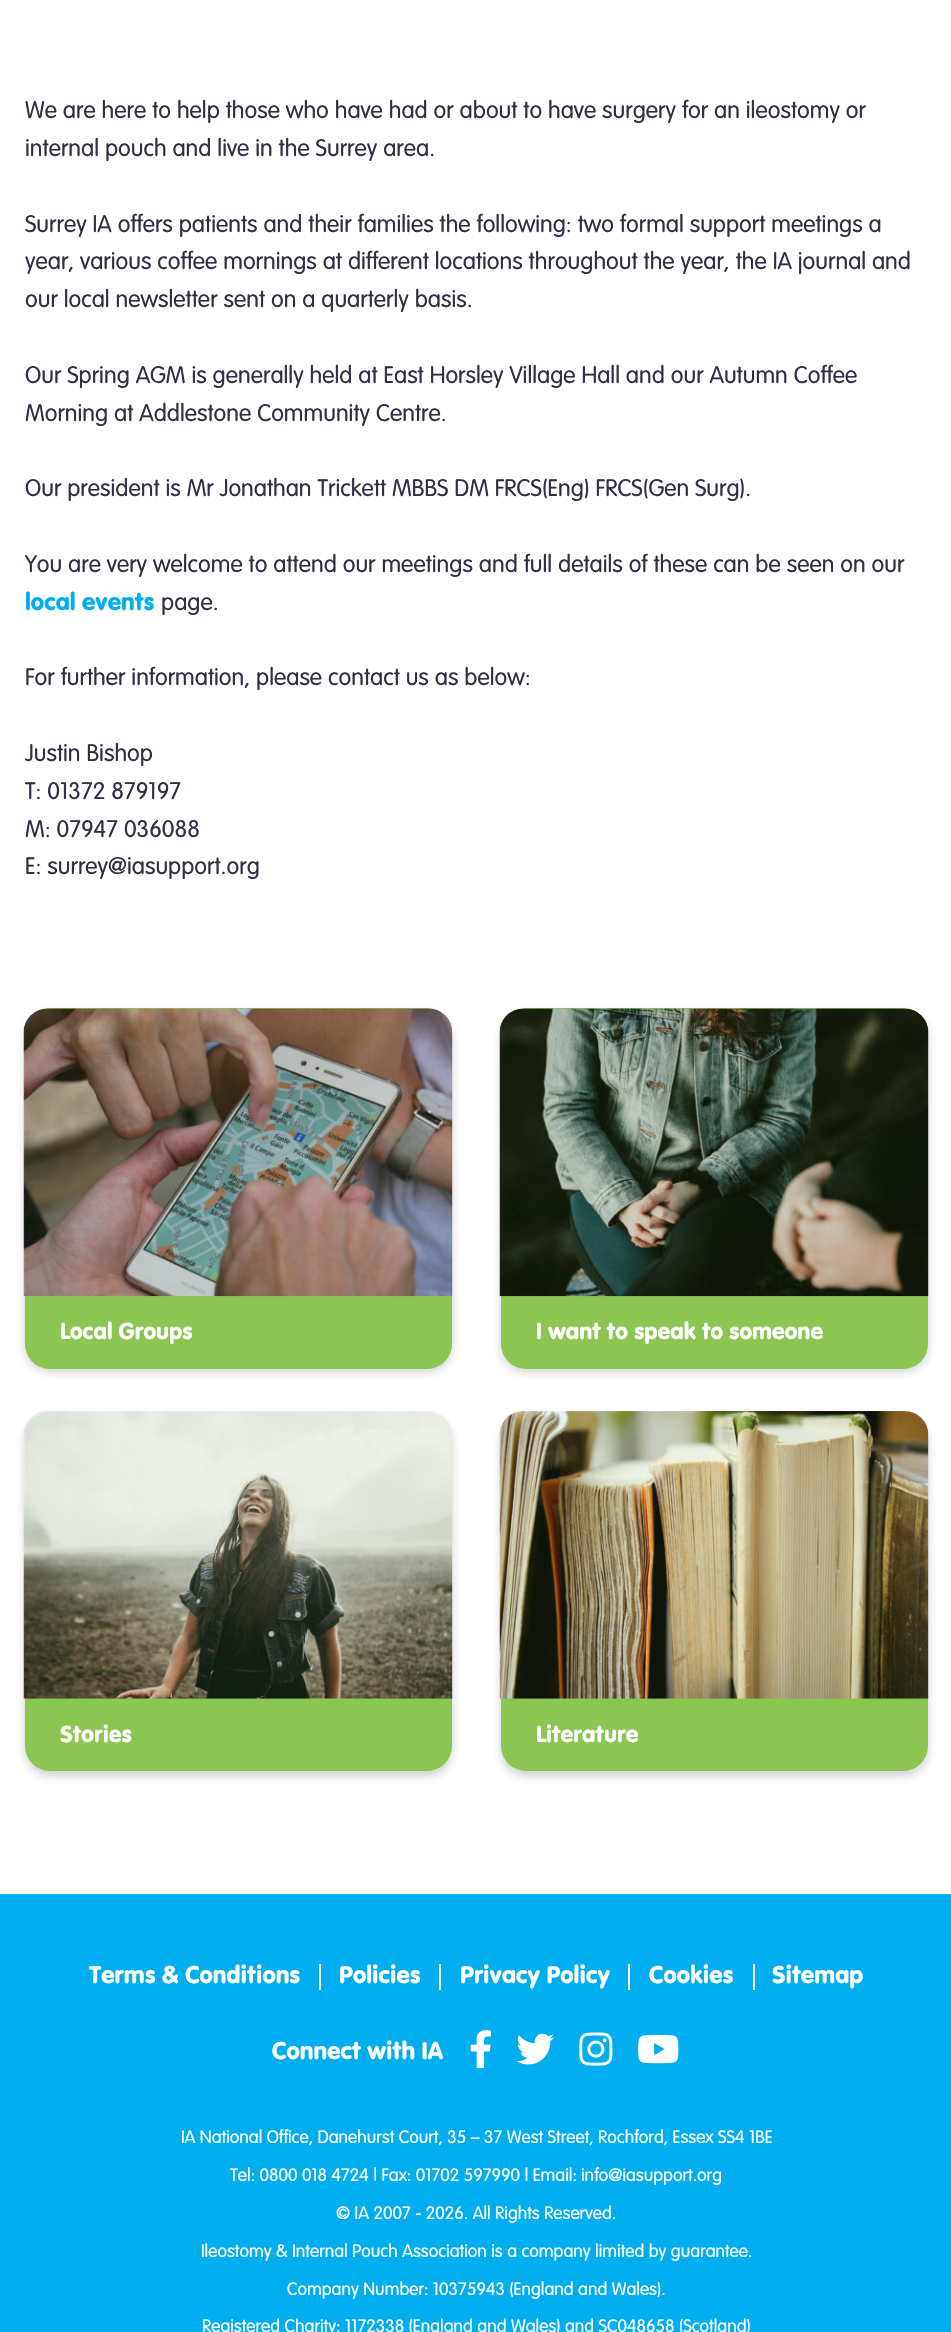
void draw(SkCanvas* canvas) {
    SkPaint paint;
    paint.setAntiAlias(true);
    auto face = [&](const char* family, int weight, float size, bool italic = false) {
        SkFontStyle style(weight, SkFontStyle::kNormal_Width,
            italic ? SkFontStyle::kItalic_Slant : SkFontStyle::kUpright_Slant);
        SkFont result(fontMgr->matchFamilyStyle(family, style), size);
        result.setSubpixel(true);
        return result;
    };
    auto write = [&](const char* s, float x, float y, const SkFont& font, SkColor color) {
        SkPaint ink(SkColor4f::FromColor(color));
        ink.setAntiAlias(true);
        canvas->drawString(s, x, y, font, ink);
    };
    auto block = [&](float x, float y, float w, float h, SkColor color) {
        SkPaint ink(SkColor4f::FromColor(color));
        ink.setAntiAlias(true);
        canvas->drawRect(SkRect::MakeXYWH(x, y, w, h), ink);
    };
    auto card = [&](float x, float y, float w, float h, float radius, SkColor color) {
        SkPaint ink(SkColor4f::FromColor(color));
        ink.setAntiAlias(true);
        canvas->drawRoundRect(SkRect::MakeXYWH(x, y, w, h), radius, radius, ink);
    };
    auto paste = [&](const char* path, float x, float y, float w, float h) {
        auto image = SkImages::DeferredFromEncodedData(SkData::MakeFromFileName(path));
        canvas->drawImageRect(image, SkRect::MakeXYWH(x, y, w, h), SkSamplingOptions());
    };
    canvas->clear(SK_ColorWHITE);
    auto kFont1 = face("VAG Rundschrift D", 300, 25.2f);
    write("We are here to help those who have had or about to have surgery for an ileostomy or", 25, 118, kFont1, SkColorSetRGB(51, 46, 69));
    write("internal pouch and live in the Surrey area.", 25, 156, kFont1, SkColorSetRGB(51, 46, 69));
    write("Surrey IA offers patients and their families the following: two formal support meetings a", 25, 232, kFont1, SkColorSetRGB(51, 46, 69));
    write("year, various coffee mornings at different locations throughout the year, the IA journal and", 25, 269, kFont1, SkColorSetRGB(51, 46, 69));
    write("our local newsletter sent on a quarterly basis.", 25, 307, kFont1, SkColorSetRGB(51, 46, 69));
    write("Our Spring AGM is generally held at East Horsley Village Hall and our Autumn Coffee", 25, 383, kFont1, SkColorSetRGB(51, 46, 69));
    write("Morning at Addlestone Community Centre.", 25, 421, kFont1, SkColorSetRGB(51, 46, 69));
    write("Our president is Mr Jonathan Trickett MBBS DM FRCS(Eng) FRCS(Gen Surg).", 25, 496, kFont1, SkColorSetRGB(51, 46, 69));
    write("You are very welcome to attend our meetings and full details of these can be seen on our", 25, 572, kFont1, SkColorSetRGB(51, 46, 69));
    auto kFont2 = face("VAG Rundschrift D", 400, 25.2f);
    write("local events", 25, 610, kFont2, SkColorSetRGB(0, 174, 239));
    write("page.", 161, 610, kFont1, SkColorSetRGB(51, 46, 69));
    write("For further information, please contact us as below:", 25, 685, kFont1, SkColorSetRGB(51, 46, 69));
    write("Justin Bishop", 25, 761, kFont1, SkColorSetRGB(51, 46, 69));
    write("T: 01372 879197", 25, 799, kFont1, SkColorSetRGB(51, 46, 69));
    write("M: 07947 036088", 25, 837, kFont1, SkColorSetRGB(51, 46, 69));
    write("E: surrey@iasupport.org", 25, 874, kFont1, SkColorSetRGB(51, 46, 69));
    paint.setColor(SkColorSetARGB(51, 26, 26, 26));
    paint.setMaskFilter(SkMaskFilter::MakeBlur(kNormal_SkBlurStyle, 5));
    canvas->drawRoundRect(SkRect::MakeXYWH(25, 1013, 427, 359), 25, 25, paint);
    paint.setMaskFilter(nullptr);
    card(25, 1008, 427, 361, 25, SkColorSetRGB(139, 197, 82));
    paste("pic1.png", 23, 1008, 430, 289);
    auto kFont3 = face("VAG Rundschrift D", 400, 24);
    write("Local Groups", 60, 1339, kFont3, SK_ColorWHITE);
    paint.setMaskFilter(SkMaskFilter::MakeBlur(kNormal_SkBlurStyle, 5));
    canvas->drawRoundRect(SkRect::MakeXYWH(501, 1013, 427, 359), 25, 25, paint);
    paint.setMaskFilter(nullptr);
    card(501, 1008, 427, 361, 25, SkColorSetRGB(139, 197, 82));
    paste("pic2.png", 499, 1008, 430, 289);
    write("I want to speak to someone", 536, 1339, kFont3, SK_ColorWHITE);
    paint.setMaskFilter(SkMaskFilter::MakeBlur(kNormal_SkBlurStyle, 5));
    canvas->drawRoundRect(SkRect::MakeXYWH(25, 1418, 427, 358), 25, 25, paint);
    paint.setMaskFilter(nullptr);
    card(25, 1412, 427, 359, 25, SkColorSetRGB(139, 197, 82));
    paste("pic3.png", 23, 1411, 430, 288);
    write("Stories", 60, 1742, kFont3, SK_ColorWHITE);
    paint.setMaskFilter(SkMaskFilter::MakeBlur(kNormal_SkBlurStyle, 5));
    canvas->drawRoundRect(SkRect::MakeXYWH(501, 1418, 427, 358), 25, 25, paint);
    paint.setMaskFilter(nullptr);
    card(501, 1412, 427, 359, 25, SkColorSetRGB(139, 197, 82));
    paste("pic4.png", 499, 1411, 430, 288);
    write("Literature", 536, 1742, kFont3, SK_ColorWHITE);
    block(0, 1894, 951, 438, SkColorSetRGB(0, 174, 239));
    block(319, 1964, 2, 26, SK_ColorWHITE);
    write("Terms & Conditions", 89, 1983, kFont2, SK_ColorWHITE);
    block(439, 1964, 2, 26, SK_ColorWHITE);
    write("Policies", 339, 1983, kFont2, SK_ColorWHITE);
    block(628, 1964, 2, 26, SK_ColorWHITE);
    write("Privacy Policy", 460, 1983, kFont2, SK_ColorWHITE);
    block(753, 1964, 2, 26, SK_ColorWHITE);
    write("Cookies", 649, 1983, kFont2, SK_ColorWHITE);
    write("Sitemap", 772, 1983, kFont2, SK_ColorWHITE);
    write("Connect with IA", 272, 2059, kFont2, SK_ColorWHITE);
    paste("pic5.png", 470, 2030, 21, 38);
    paste("pic6.png", 516, 2033, 38, 32);
    paste("pic7.png", 579, 2032, 34, 34);
    paste("pic8.png", 638, 2034, 41, 30);
    auto kFont4 = face("VAG Rundschrift D", 300, 18.9f);
    write("IA National Office, Danehurst Court, 35 – 37 West Street, Rochford, Essex SS4 1BE", 181, 2143, kFont4, SK_ColorWHITE);
    write("Tel: 0800 018 4724 | Fax: 01702 597990 | Email:", 230, 2181, kFont4, SK_ColorWHITE);
    write("info@iasupport.org", 581, 2181, kFont4, SK_ColorWHITE);
    write("© IA 2007 - 2026. All Rights Reserved.", 336, 2219, kFont4, SK_ColorWHITE);
    write("Ileostomy & Internal Pouch Association is a company limited by guarantee.", 201, 2257, kFont4, SK_ColorWHITE);
    write("Company Number: 10375943 (England and Wales).", 287, 2295, kFont4, SK_ColorWHITE);
    write("Registered Charity: 1172338 (England and Wales) and SC048658 (Scotland)", 202, 2332, kFont4, SK_ColorWHITE);
}
